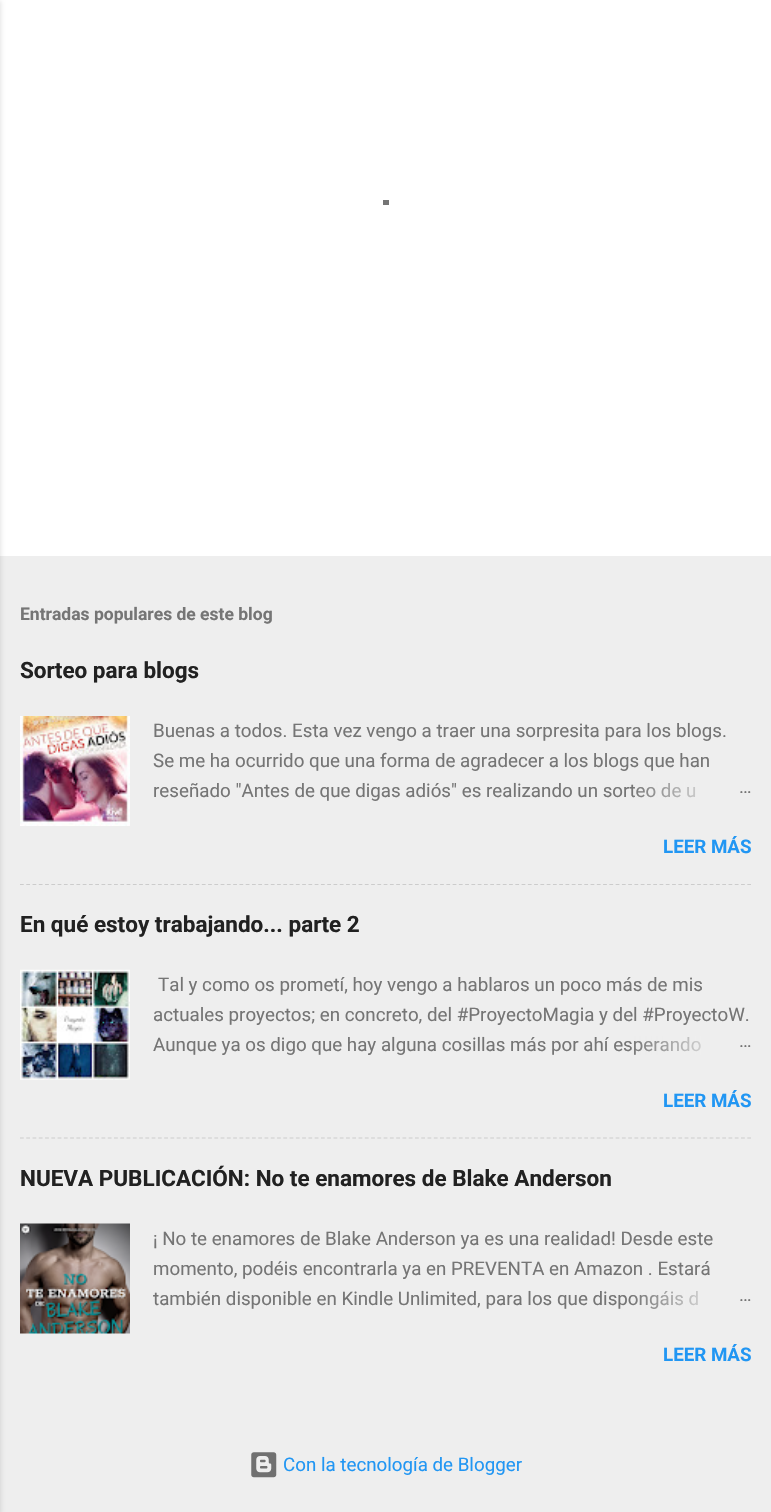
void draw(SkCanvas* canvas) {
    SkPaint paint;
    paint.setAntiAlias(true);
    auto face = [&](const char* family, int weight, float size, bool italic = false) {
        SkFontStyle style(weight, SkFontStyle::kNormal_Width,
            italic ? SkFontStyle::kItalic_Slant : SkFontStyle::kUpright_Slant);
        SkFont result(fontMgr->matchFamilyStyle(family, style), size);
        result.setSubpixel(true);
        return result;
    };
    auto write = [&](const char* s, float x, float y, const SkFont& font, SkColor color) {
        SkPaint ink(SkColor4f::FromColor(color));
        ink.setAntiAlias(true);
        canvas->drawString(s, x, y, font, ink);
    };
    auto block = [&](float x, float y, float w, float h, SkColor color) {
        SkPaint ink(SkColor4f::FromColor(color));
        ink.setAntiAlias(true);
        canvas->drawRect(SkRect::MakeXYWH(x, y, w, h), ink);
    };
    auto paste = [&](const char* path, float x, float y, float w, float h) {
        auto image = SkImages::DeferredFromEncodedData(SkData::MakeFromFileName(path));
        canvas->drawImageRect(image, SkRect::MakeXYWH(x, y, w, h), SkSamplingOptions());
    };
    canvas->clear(SkColorSetRGB(238, 238, 238));
    block(0, 0, 771, 556, SK_ColorWHITE);
    paint.setColor(SkColorSetARGB(26, 0, 0, 0));
    paint.setMaskFilter(SkMaskFilter::MakeBlur(kNormal_SkBlurStyle, 2));
    canvas->drawRect(SkRect::MakeXYWH(-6, 1, 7, 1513), paint);
    paint.setMaskFilter(nullptr);
    block(383, 200, 6, 5, SkColorSetRGB(117, 117, 117));
    auto kFont1 = face("Roboto", 700, 17.5f);
    write("Entradas populares de este blog", 20, 620, kFont1, SkColorSetRGB(117, 117, 117));
    auto kFont2 = face("Roboto", 700, 22.5f);
    write("Sorteo para blogs", 20, 678, kFont2, SkColorSetRGB(33, 33, 33));
    paste("pic1.png", 20, 716, 110, 110);
    auto kFont3 = face("Roboto", 400, 18.75f);
    write("Buenas a todos. Esta vez vengo a traer una sorpresita para los blogs.", 153, 737, kFont3, SkColorSetRGB(117, 117, 117));
    write("Se me ha ocurrido que una forma de agradecer a los blogs que han", 153, 767, kFont3, SkColorSetRGB(117, 117, 117));
    write("reseñado \"Antes de que digas adiós\" es realizando un sorteo de u", 153, 797, kFont3, SkColorSetRGB(117, 117, 117));
    {
        const SkColor colors[] = {SkColorSetRGB(238, 238, 238), SkColorSetRGB(238, 238, 238), SkColorSetARGB(0, 238, 238, 238)};
        const float stops[] = {0, 0.2f, 1};
        const SkPoint ends[] = {{751, 791}, {631, 791}};
        paint.setShader(SkGradientShader::MakeLinear(ends, colors, stops, 3, SkTileMode::kClamp));
        paint.setAlpha(255);
    }
    canvas->drawRect(SkRect::MakeXYWH(633, 782, 63, 16), paint);
    write("…", 739, 793, kFont3, SkColorSetRGB(117, 117, 117));
    auto kFont4 = face("Roboto", 700, 18.75f);
    write("LEER MÁS", 663, 853, kFont4, SkColorSetRGB(33, 150, 243));
    paint.setStyle(SkPaint::kStroke_Style);
    paint.setStrokeWidth(1.2f);
    paint.setShader(nullptr);
    paint.setColor(SkColorSetRGB(204, 204, 204));
    paint.setPathEffect(SkDashPathEffect::Make({{3.75f, 2.52f}}, 0));
    canvas->drawPath(SkPathBuilder().moveTo(20, 884.5f).lineTo(751, 884.5f).detach(), paint);
    paint.setPathEffect(nullptr);
    write("En qué estoy trabajando... parte 2", 20, 932, kFont2, SkColorSetRGB(33, 33, 33));
    paste("pic2.png", 20, 969, 110, 111);
    write("Tal y como os prometí, hoy vengo a hablaros un poco más de mis", 158, 991, kFont3, SkColorSetRGB(117, 117, 117));
    write("actuales proyectos; en concreto, del #ProyectoMagia y del #ProyectoW.", 153, 1021, kFont3, SkColorSetRGB(117, 117, 117));
    write("Aunque ya os digo que hay alguna cosillas más por ahí esperando", 153, 1051, kFont3, SkColorSetRGB(117, 117, 117));
    paint.setStyle(SkPaint::kFill_Style);
    {
        const SkColor colors[] = {SkColorSetRGB(238, 238, 238), SkColorSetRGB(238, 238, 238), SkColorSetARGB(0, 238, 238, 238)};
        const float stops[] = {0, 0.2f, 1};
        const SkPoint ends[] = {{751, 1045}, {631, 1045}};
        paint.setShader(SkGradientShader::MakeLinear(ends, colors, stops, 3, SkTileMode::kClamp));
        paint.setAlpha(255);
    }
    canvas->drawRect(SkRect::MakeXYWH(634, 1036, 67, 19), paint);
    write("…", 739, 1047, kFont3, SkColorSetRGB(117, 117, 117));
    write("LEER MÁS", 663, 1107, kFont4, SkColorSetRGB(33, 150, 243));
    paint.setStyle(SkPaint::kStroke_Style);
    paint.setShader(nullptr);
    paint.setColor(SkColorSetRGB(204, 204, 204));
    paint.setPathEffect(SkDashPathEffect::Make({{3.75f, 2.52f}}, 0));
    canvas->drawPath(SkPathBuilder().moveTo(20, 1138).lineTo(751, 1138).detach(), paint);
    paint.setPathEffect(nullptr);
    write("NUEVA PUBLICACIÓN: No te enamores de Blake Anderson", 20, 1186, kFont2, SkColorSetRGB(33, 33, 33));
    paste("pic3.png", 20, 1223, 110, 111);
    write("¡ No te enamores de Blake Anderson ya es una realidad! Desde este", 153, 1245, kFont3, SkColorSetRGB(117, 117, 117));
    write("momento, podéis encontrarla ya en PREVENTA en Amazon . Estará", 153, 1275, kFont3, SkColorSetRGB(117, 117, 117));
    write("también disponible en Kindle Unlimited, para los que dispongáis d", 153, 1305, kFont3, SkColorSetRGB(117, 117, 117));
    paint.setStyle(SkPaint::kFill_Style);
    {
        const SkColor colors[] = {SkColorSetRGB(238, 238, 238), SkColorSetRGB(238, 238, 238), SkColorSetARGB(0, 238, 238, 238)};
        const float stops[] = {0, 0.2f, 1};
        const SkPoint ends[] = {{751, 1299}, {631, 1299}};
        paint.setShader(SkGradientShader::MakeLinear(ends, colors, stops, 3, SkTileMode::kClamp));
        paint.setAlpha(255);
    }
    canvas->drawRect(SkRect::MakeXYWH(633, 1290, 65, 19), paint);
    write("…", 739, 1301, kFont3, SkColorSetRGB(117, 117, 117));
    write("LEER MÁS", 663, 1361, kFont4, SkColorSetRGB(33, 150, 243));
    paste("pic4.png", 251, 1452, 26, 26);
    write("Con la tecnología de Blogger", 283, 1471, kFont3, SkColorSetRGB(33, 150, 243));
}
